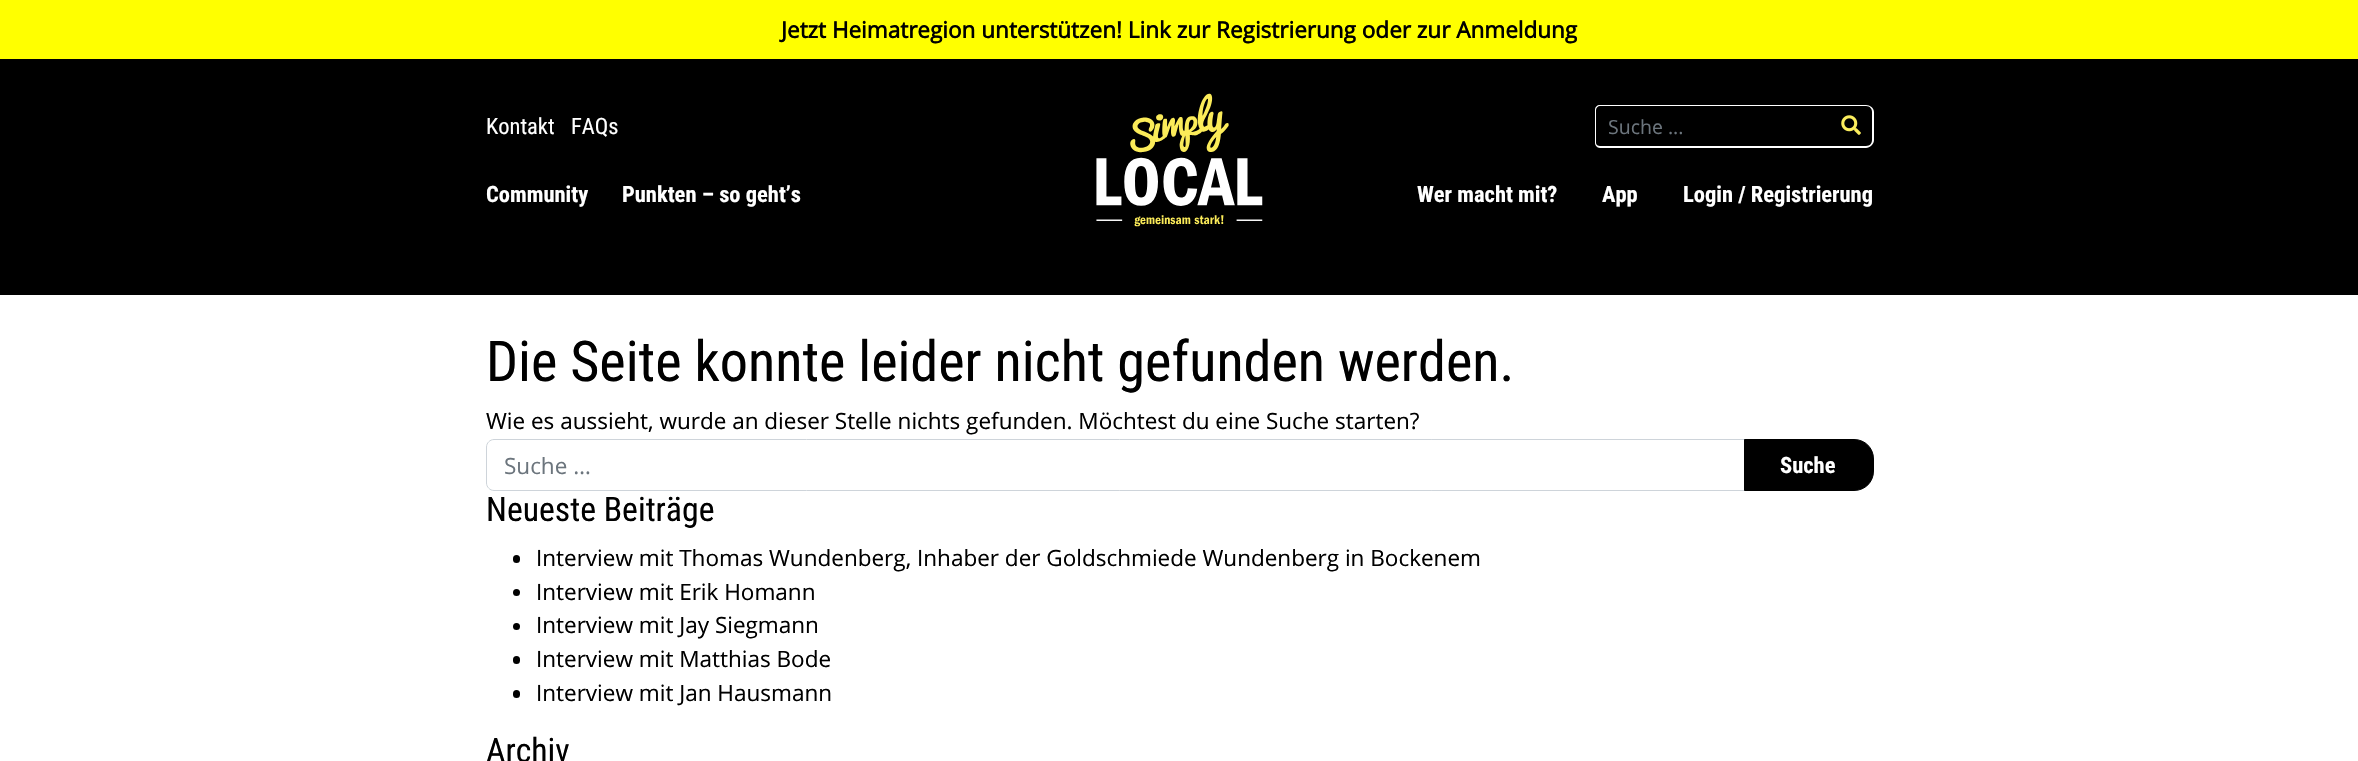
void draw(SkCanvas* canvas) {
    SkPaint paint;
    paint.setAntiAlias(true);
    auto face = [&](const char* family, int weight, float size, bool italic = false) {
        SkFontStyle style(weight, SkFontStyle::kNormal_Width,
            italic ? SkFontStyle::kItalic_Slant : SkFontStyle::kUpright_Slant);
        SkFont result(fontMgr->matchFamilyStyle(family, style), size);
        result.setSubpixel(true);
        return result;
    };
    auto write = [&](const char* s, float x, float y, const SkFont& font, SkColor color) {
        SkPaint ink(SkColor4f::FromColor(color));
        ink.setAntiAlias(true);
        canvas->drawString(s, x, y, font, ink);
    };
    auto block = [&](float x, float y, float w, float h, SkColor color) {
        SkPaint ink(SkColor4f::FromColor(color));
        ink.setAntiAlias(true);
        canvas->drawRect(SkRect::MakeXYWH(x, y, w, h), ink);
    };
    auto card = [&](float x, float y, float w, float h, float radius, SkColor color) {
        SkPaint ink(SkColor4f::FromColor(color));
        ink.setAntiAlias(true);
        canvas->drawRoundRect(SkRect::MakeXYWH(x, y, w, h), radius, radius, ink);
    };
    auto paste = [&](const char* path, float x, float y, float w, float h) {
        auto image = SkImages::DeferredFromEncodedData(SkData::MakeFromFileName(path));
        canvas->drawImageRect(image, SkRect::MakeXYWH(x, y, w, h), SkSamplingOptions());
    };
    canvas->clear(SK_ColorWHITE);
    block(0, 0, 2358, 59, SkColorSetRGB(255, 255, 0));
    auto kFont1 = face("Open Sans", 700, 22.5f);
    write("Jetzt Heimatregion unterstützen! Link zur Registrierung oder zur Anmeldung", 781, 38, kFont1, SK_ColorBLACK);
    block(0, 59, 2358, 236, SK_ColorBLACK);
    auto kFont2 = face("Roboto Condensed", 400, 22.5f);
    write("Kontakt", 486, 134, kFont2, SK_ColorWHITE);
    write("FAQs", 571, 134, kFont2, SK_ColorWHITE);
    auto kFont3 = face("Roboto Condensed", 700, 22.5f);
    write("Community", 486, 202, kFont3, SK_ColorWHITE);
    write("Punkten – so geht’s", 622, 202, kFont3, SK_ColorWHITE);
    paste("pic1.png", 1096, 93, 167, 134);
    paint.setColor(SK_ColorWHITE);
    canvas->drawPath(SkPathBuilder(SkPathFillType::kEvenOdd).moveTo(1600, 105).lineTo(1842, 105).lineTo(1842, 148).lineTo(1600, 148).cubicTo(1597, 148, 1595, 145, 1595, 143).lineTo(1595, 110).cubicTo(1595, 107, 1597, 105, 1600, 105).close().moveTo(1600, 106).lineTo(1842, 106).lineTo(1842, 146).lineTo(1600, 146).cubicTo(1598, 146, 1596, 145, 1596, 143).lineTo(1596, 110).cubicTo(1596, 108, 1598, 106, 1600, 106).close().detach(), paint);
    auto kFont4 = face("Open Sans", 400, 19.5f);
    write("Suche ...", 1608, 134, kFont4, SkColorSetRGB(108, 117, 125));
    canvas->drawPath(SkPathBuilder(SkPathFillType::kEvenOdd).moveTo(1841, 105).lineTo(1866, 105).cubicTo(1870, 105, 1874, 108, 1874, 112).lineTo(1874, 140).cubicTo(1874, 144, 1870, 148, 1866, 148).lineTo(1841, 148).close().moveTo(1841, 106).lineTo(1866, 106).cubicTo(1870, 106, 1872, 109, 1872, 112).lineTo(1872, 140).cubicTo(1872, 143, 1870, 146, 1866, 146).lineTo(1841, 146).close().detach(), paint);
    paste("pic2.png", 1841, 115, 20, 20);
    write("Wer macht mit?", 1417, 202, kFont3, SK_ColorWHITE);
    write("App", 1602, 202, kFont3, SK_ColorWHITE);
    write("Login / Registrierung", 1683, 202, kFont3, SK_ColorWHITE);
    auto kFont5 = face("Roboto Condensed", 400, 56.25f);
    write("Die Seite konnte leider nicht gefunden werden.", 486, 381, kFont5, SK_ColorBLACK);
    auto kFont6 = face("Open Sans", 400, 22.5f);
    write("Wie es aussieht, wurde an dieser Stelle nichts gefunden. Möchtest du eine Suche starten?", 486, 429, kFont6, SK_ColorBLACK);
    paint.setStyle(SkPaint::kStroke_Style);
    paint.setStrokeWidth(1);
    paint.setColor(SkColorSetRGB(206, 212, 218));
    canvas->drawPath(SkPathBuilder().moveTo(494, 439.5f).lineTo(1744.5f, 439.5f).lineTo(1744.5f, 490.5f).lineTo(494, 490.5f).cubicTo(490, 490.5f, 486.5f, 487, 486.5f, 483).lineTo(486.5f, 447).cubicTo(486.5f, 443, 490, 439.5f, 494, 439.5f).close().detach(), paint);
    write("Suche …", 504, 474, kFont6, SkColorSetRGB(108, 117, 125));
    paint.setStyle(SkPaint::kFill_Style);
    paint.setColor(SK_ColorBLACK);
    canvas->drawPath(SkPathBuilder().moveTo(1744.5f, 439.5f).lineTo(1854, 439.5f).cubicTo(1865, 439.5f, 1873.5f, 448, 1873.5f, 459).lineTo(1873.5f, 471).cubicTo(1873.5f, 482, 1865, 490.5f, 1854, 490.5f).lineTo(1744.5f, 490.5f).close().detach(), paint);
    paint.setStyle(SkPaint::kStroke_Style);
    canvas->drawPath(SkPathBuilder().moveTo(1744.5f, 439.5f).lineTo(1854, 439.5f).cubicTo(1865, 439.5f, 1873.5f, 448, 1873.5f, 459).lineTo(1873.5f, 471).cubicTo(1873.5f, 482, 1865, 490.5f, 1854, 490.5f).lineTo(1744.5f, 490.5f).close().detach(), paint);
    write("Suche", 1780, 473, kFont3, SK_ColorWHITE);
    auto kFont7 = face("Roboto Condensed", 400, 33.75f);
    write("Neueste Beiträge", 486, 521, kFont7, SK_ColorBLACK);
    card(513, 555, 7, 8, 3.5f, SK_ColorBLACK);
    write("Interview mit Thomas Wundenberg, Inhaber der Goldschmiede Wundenberg in Bockenem", 536, 566, kFont6, SK_ColorBLACK);
    paint.setStyle(SkPaint::kFill_Style);
    canvas->drawCircle(516.5f, 592.5f, 3.5f, paint);
    write("Interview mit Erik Homann", 536, 600, kFont6, SK_ColorBLACK);
    canvas->drawCircle(516.5f, 626.5f, 3.5f, paint);
    write("Interview mit Jay Siegmann", 536, 633, kFont6, SK_ColorBLACK);
    card(513, 656, 7, 8, 3.5f, SK_ColorBLACK);
    write("Interview mit Matthias Bode", 536, 667, kFont6, SK_ColorBLACK);
    card(513, 690, 7, 8, 3.5f, SK_ColorBLACK);
    write("Interview mit Jan Hausmann", 536, 701, kFont6, SK_ColorBLACK);
    write("Archiv", 486, 762, kFont7, SK_ColorBLACK);
}
